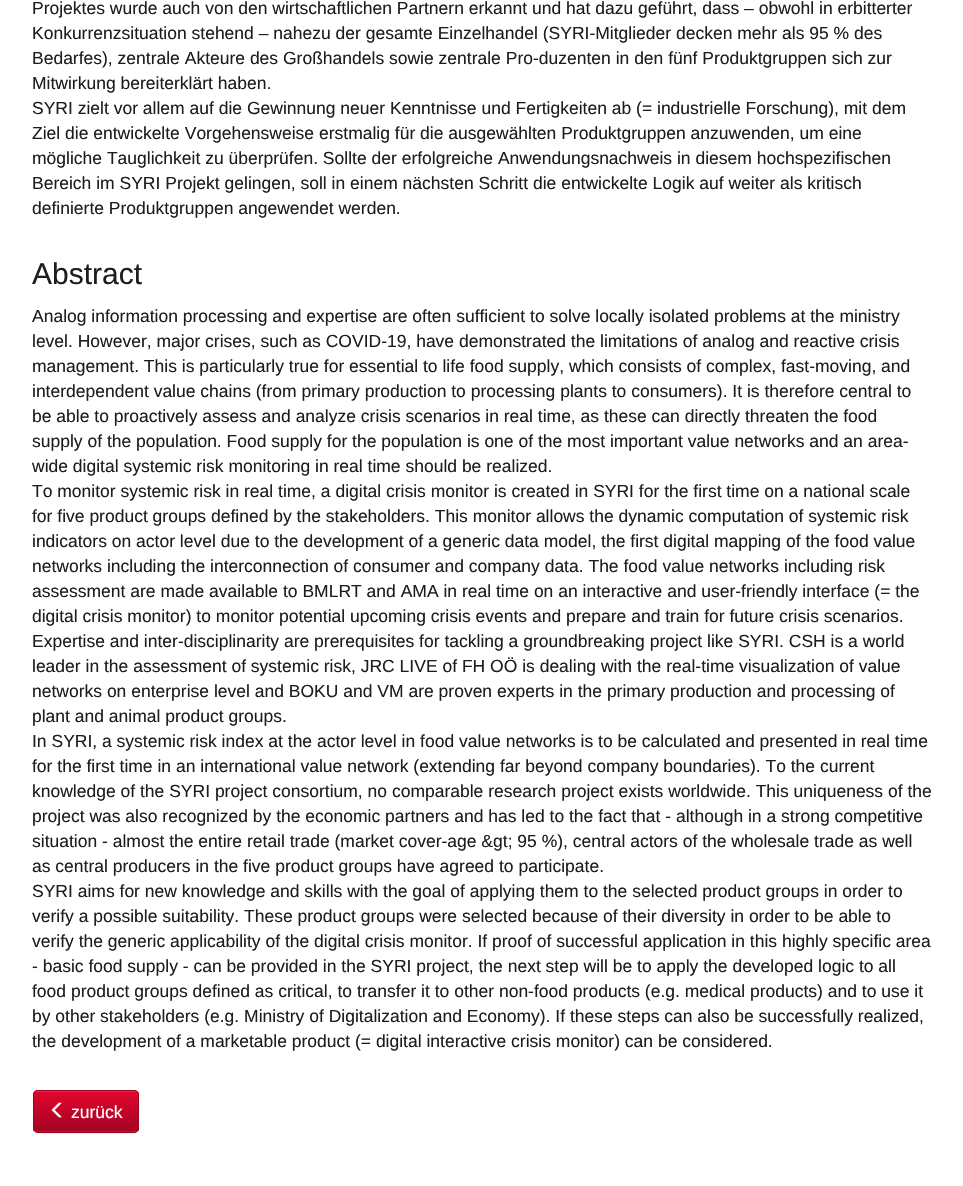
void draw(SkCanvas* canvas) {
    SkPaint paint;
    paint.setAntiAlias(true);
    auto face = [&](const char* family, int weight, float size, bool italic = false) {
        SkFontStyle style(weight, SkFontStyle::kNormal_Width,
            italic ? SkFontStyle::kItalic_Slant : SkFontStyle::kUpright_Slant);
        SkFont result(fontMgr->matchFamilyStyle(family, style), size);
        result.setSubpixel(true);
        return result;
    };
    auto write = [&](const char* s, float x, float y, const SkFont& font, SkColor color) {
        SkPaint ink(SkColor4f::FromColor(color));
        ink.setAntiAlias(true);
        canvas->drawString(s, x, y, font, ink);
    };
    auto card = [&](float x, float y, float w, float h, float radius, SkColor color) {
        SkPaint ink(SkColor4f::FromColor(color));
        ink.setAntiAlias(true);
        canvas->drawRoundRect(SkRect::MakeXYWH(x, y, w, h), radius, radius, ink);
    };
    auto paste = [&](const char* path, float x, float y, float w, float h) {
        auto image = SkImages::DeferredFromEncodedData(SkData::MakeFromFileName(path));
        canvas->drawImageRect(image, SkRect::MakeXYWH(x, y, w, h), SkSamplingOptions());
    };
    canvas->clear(SK_ColorWHITE);
    auto kFont1 = face("Liberation Sans", 400, 17.5f);
    write("Projektes wurde auch von den wirtschaftlichen Partnern erkannt und hat dazu geführt, dass – obwohl in erbitterter", 32, 14, kFont1, SkColorSetRGB(29, 29, 27));
    write("Konkurrenzsituation stehend – nahezu der gesamte Einzelhandel (SYRI-Mitglieder decken mehr als 95 % des", 32, 39, kFont1, SkColorSetRGB(29, 29, 27));
    write("Bedarfes), zentrale Akteure des Großhandels sowie zentrale Pro-duzenten in den fünf Produktgruppen sich zur", 32, 64, kFont1, SkColorSetRGB(29, 29, 27));
    write("Mitwirkung bereiterklärt haben.", 32, 89, kFont1, SkColorSetRGB(29, 29, 27));
    write("SYRI zielt vor allem auf die Gewinnung neuer Kenntnisse und Fertigkeiten ab (= industrielle Forschung), mit dem", 32, 114, kFont1, SkColorSetRGB(29, 29, 27));
    write("Ziel die entwickelte Vorgehensweise erstmalig für die ausgewählten Produktgruppen anzuwenden, um eine", 32, 139, kFont1, SkColorSetRGB(29, 29, 27));
    write("mögliche Tauglichkeit zu überprüfen. Sollte der erfolgreiche Anwendungsnachweis in diesem hochspezifischen", 32, 164, kFont1, SkColorSetRGB(29, 29, 27));
    write("Bereich im SYRI Projekt gelingen, soll in einem nächsten Schritt die entwickelte Logik auf weiter als kritisch", 32, 189, kFont1, SkColorSetRGB(29, 29, 27));
    write("definierte Produktgruppen angewendet werden.", 32, 214, kFont1, SkColorSetRGB(29, 29, 27));
    auto kFont2 = face("Liberation Sans", 400, 30);
    write("Abstract", 32, 284, kFont2, SkColorSetRGB(29, 29, 27));
    write("Analog information processing and expertise are often sufficient to solve locally isolated problems at the ministry", 32, 322, kFont1, SkColorSetRGB(29, 29, 27));
    write("level. However, major crises, such as COVID-19, have demonstrated the limitations of analog and reactive crisis", 32, 347, kFont1, SkColorSetRGB(29, 29, 27));
    write("management. This is particularly true for essential to life food supply, which consists of complex, fast-moving, and", 32, 372, kFont1, SkColorSetRGB(29, 29, 27));
    write("interdependent value chains (from primary production to processing plants to consumers). It is therefore central to", 32, 397, kFont1, SkColorSetRGB(29, 29, 27));
    write("be able to proactively assess and analyze crisis scenarios in real time, as these can directly threaten the food", 32, 422, kFont1, SkColorSetRGB(29, 29, 27));
    write("supply of the population. Food supply for the population is one of the most important value networks and an area-", 32, 447, kFont1, SkColorSetRGB(29, 29, 27));
    write("wide digital systemic risk monitoring in real time should be realized.", 32, 472, kFont1, SkColorSetRGB(29, 29, 27));
    write("To monitor systemic risk in real time, a digital crisis monitor is created in SYRI for the first time on a national scale", 32, 497, kFont1, SkColorSetRGB(29, 29, 27));
    write("for five product groups defined by the stakeholders. This monitor allows the dynamic computation of systemic risk", 32, 522, kFont1, SkColorSetRGB(29, 29, 27));
    write("indicators on actor level due to the development of a generic data model, the first digital mapping of the food value", 32, 547, kFont1, SkColorSetRGB(29, 29, 27));
    write("networks including the interconnection of consumer and company data. The food value networks including risk", 32, 572, kFont1, SkColorSetRGB(29, 29, 27));
    write("assessment are made available to BMLRT and AMA in real time on an interactive and user-friendly interface (= the", 32, 597, kFont1, SkColorSetRGB(29, 29, 27));
    write("digital crisis monitor) to monitor potential upcoming crisis events and prepare and train for future crisis scenarios.", 32, 622, kFont1, SkColorSetRGB(29, 29, 27));
    write("Expertise and inter-disciplinarity are prerequisites for tackling a groundbreaking project like SYRI. CSH is a world", 32, 647, kFont1, SkColorSetRGB(29, 29, 27));
    write("leader in the assessment of systemic risk, JRC LIVE of FH OÖ is dealing with the real-time visualization of value", 32, 672, kFont1, SkColorSetRGB(29, 29, 27));
    write("networks on enterprise level and BOKU and VM are proven experts in the primary production and processing of", 32, 697, kFont1, SkColorSetRGB(29, 29, 27));
    write("plant and animal product groups.", 32, 722, kFont1, SkColorSetRGB(29, 29, 27));
    write("In SYRI, a systemic risk index at the actor level in food value networks is to be calculated and presented in real time", 32, 747, kFont1, SkColorSetRGB(29, 29, 27));
    write("for the first time in an international value network (extending far beyond company boundaries). To the current", 32, 772, kFont1, SkColorSetRGB(29, 29, 27));
    write("knowledge of the SYRI project consortium, no comparable research project exists worldwide. This uniqueness of the", 32, 797, kFont1, SkColorSetRGB(29, 29, 27));
    write("project was also recognized by the economic partners and has led to the fact that - although in a strong competitive", 32, 822, kFont1, SkColorSetRGB(29, 29, 27));
    write("situation - almost the entire retail trade (market cover-age &gt; 95 %), central actors of the wholesale trade as well", 32, 847, kFont1, SkColorSetRGB(29, 29, 27));
    write("as central producers in the five product groups have agreed to participate.", 32, 872, kFont1, SkColorSetRGB(29, 29, 27));
    write("SYRI aims for new knowledge and skills with the goal of applying them to the selected product groups in order to", 32, 897, kFont1, SkColorSetRGB(29, 29, 27));
    write("verify a possible suitability. These product groups were selected because of their diversity in order to be able to", 32, 922, kFont1, SkColorSetRGB(29, 29, 27));
    write("verify the generic applicability of the digital crisis monitor. If proof of successful application in this highly specific area", 32, 947, kFont1, SkColorSetRGB(29, 29, 27));
    write("- basic food supply - can be provided in the SYRI project, the next step will be to apply the developed logic to all", 32, 972, kFont1, SkColorSetRGB(29, 29, 27));
    write("food product groups defined as critical, to transfer it to other non-food products (e.g. medical products) and to use it", 32, 997, kFont1, SkColorSetRGB(29, 29, 27));
    write("by other stakeholders (e.g. Ministry of Digitalization and Economy). If these steps can also be successfully realized,", 32, 1022, kFont1, SkColorSetRGB(29, 29, 27));
    write("the development of a marketable product (= digital interactive crisis monitor) can be considered.", 32, 1047, kFont1, SkColorSetRGB(29, 29, 27));
    paint.setColor(SkColorSetARGB(18, 0, 0, 0));
    paint.setMaskFilter(SkMaskFilter::MakeBlur(kNormal_SkBlurStyle, 0.5f));
    canvas->drawRoundRect(SkRect::MakeXYWH(33, 1091, 106, 43), 5, 5, paint);
    paint.setMaskFilter(nullptr);
    card(33, 1090, 106, 43, 5, SkColorSetRGB(225, 5, 46));
    canvas->save();
    canvas->clipPath(SkPathBuilder().moveTo(38, 1090).lineTo(134, 1090).cubicTo(137, 1090, 139, 1092, 139, 1095).lineTo(139, 1128).cubicTo(139, 1131, 137, 1133, 134, 1133).lineTo(38, 1133).cubicTo(35, 1133, 33, 1131, 33, 1128).lineTo(33, 1095).cubicTo(33, 1092, 35, 1090, 38, 1090).close().detach(), true);
    {
        const SkColor colors[] = {SkColorSetRGB(225, 5, 46), SkColorSetRGB(165, 4, 34)};
        const float stops[] = {0, 1};
        const SkPoint ends[] = {{86, 1091}, {86, 1131}};
        paint.setShader(SkGradientShader::MakeLinear(ends, colors, stops, 2, SkTileMode::kClamp));
        paint.setAlpha(255);
    }
    canvas->drawRect(SkRect::MakeXYWH(33, 1091, 106, 40), paint);
    canvas->restore();
    paint.setShader(nullptr);
    paint.setColor(SkColorSetRGB(229, 43, 77));
    canvas->drawPath(SkPathBuilder().moveTo(38, 1092).lineTo(134, 1092).cubicTo(136, 1092, 138, 1094, 138, 1096).cubicTo(138, 1087, 122, 1091, 118, 1091).lineTo(54, 1091).cubicTo(50, 1091, 34, 1087, 34, 1096).cubicTo(34, 1094, 35, 1092, 38, 1092).close().detach(), paint);
    paint.setStyle(SkPaint::kStroke_Style);
    paint.setStrokeWidth(1);
    paint.setColor(SkColorSetRGB(155, 3, 32));
    canvas->drawRoundRect(SkRect::MakeXYWH(33.5f, 1090.5f, 105, 42), 4.5f, 4.5f, paint);
    paste("pic1.png", 51, 1102, 11, 16);
    write("zurück", 71, 1118, kFont1, SK_ColorWHITE);
}
